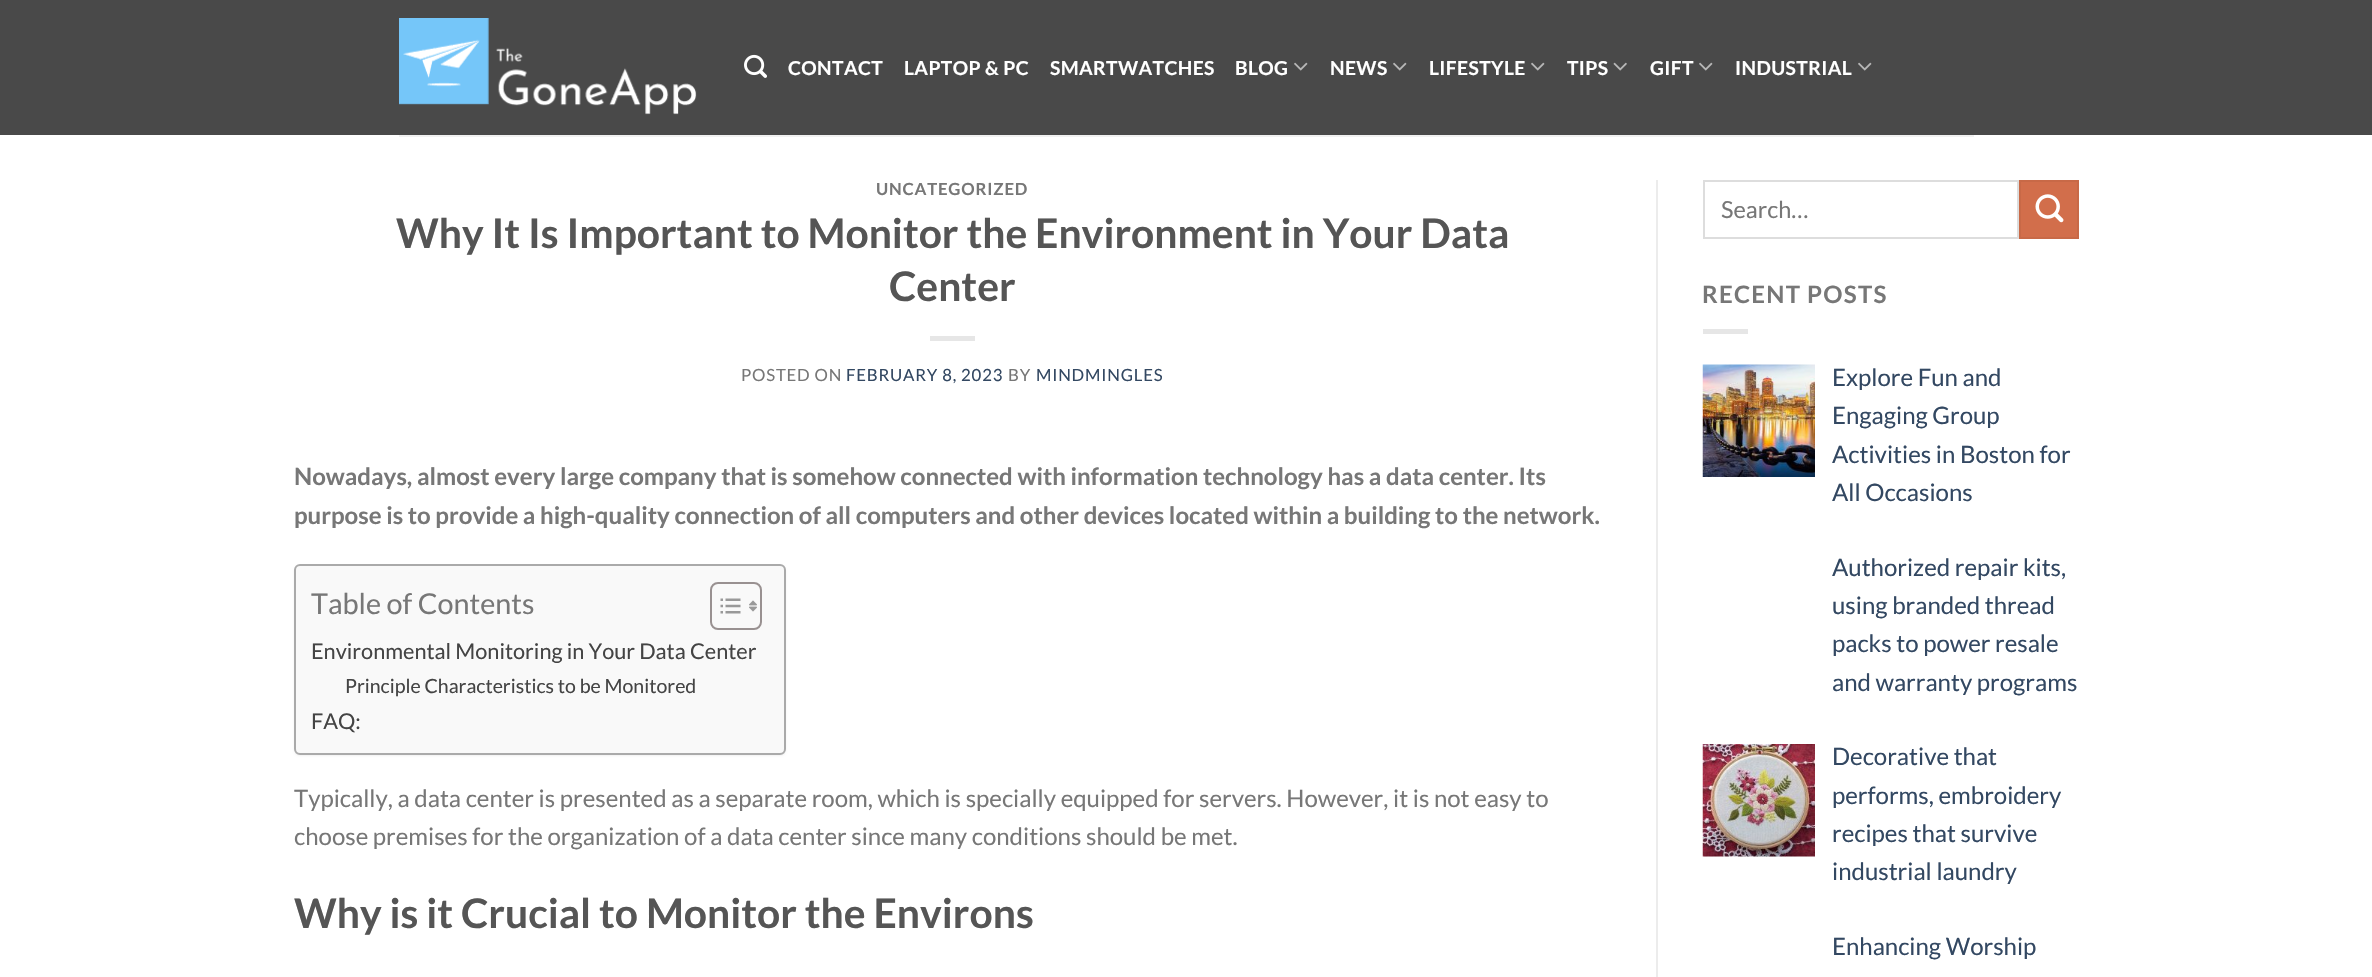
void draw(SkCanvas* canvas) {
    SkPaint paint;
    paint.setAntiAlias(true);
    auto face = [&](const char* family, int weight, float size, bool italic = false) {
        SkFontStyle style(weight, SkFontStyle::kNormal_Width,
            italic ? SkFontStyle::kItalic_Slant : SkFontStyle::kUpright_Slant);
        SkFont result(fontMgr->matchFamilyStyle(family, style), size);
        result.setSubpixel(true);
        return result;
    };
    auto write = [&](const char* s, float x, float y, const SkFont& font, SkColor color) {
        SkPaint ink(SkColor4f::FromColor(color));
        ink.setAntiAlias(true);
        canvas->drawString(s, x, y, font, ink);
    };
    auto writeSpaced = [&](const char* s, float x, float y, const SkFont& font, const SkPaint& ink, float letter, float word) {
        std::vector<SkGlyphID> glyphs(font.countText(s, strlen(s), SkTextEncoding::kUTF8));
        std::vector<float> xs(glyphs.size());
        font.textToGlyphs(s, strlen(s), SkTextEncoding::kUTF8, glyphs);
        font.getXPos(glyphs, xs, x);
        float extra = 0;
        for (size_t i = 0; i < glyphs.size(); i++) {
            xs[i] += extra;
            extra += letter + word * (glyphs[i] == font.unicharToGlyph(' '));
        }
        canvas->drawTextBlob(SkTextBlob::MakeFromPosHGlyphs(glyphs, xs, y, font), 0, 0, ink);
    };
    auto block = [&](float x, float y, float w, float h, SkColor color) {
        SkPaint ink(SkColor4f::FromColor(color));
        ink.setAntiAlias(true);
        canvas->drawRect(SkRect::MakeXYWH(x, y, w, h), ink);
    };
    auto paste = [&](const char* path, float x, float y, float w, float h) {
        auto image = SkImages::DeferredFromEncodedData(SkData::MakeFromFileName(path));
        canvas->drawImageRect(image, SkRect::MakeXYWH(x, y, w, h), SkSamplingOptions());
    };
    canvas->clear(SK_ColorWHITE);
    block(0, 0, 2372, 135, SkColorSetRGB(73, 73, 73));
    paste("pic1.png", 399, 18, 298, 97);
    paste("pic2.png", 744, 54, 23, 24);
    auto kFont1 = face("Lato", 700, 19.25f);
    paint.setColor(SK_ColorWHITE);
    writeSpaced("CONTACT", 788, 75, kFont1, paint, 0.4f, 0);
    writeSpaced("LAPTOP & PC", 904, 75, kFont1, paint, 0.4f, 0);
    writeSpaced("SMARTWATCHES", 1050, 75, kFont1, paint, 0.4f, 0);
    writeSpaced("BLOG", 1235, 75, kFont1, paint, 0.4f, 0);
    paste("pic3.png", 1294, 62, 14, 9);
    writeSpaced("NEWS", 1330, 75, kFont1, paint, 0.4f, 0);
    paste("pic3.png", 1393, 62, 14, 9);
    writeSpaced("LIFESTYLE", 1429, 75, kFont1, paint, 0.4f, 0);
    paste("pic3.png", 1531, 62, 14, 9);
    writeSpaced("TIPS", 1567, 75, kFont1, paint, 0.4f, 0);
    paste("pic4.png", 1613, 62, 14, 9);
    writeSpaced("GIFT", 1650, 75, kFont1, paint, 0.4f, 0);
    paste("pic3.png", 1699, 62, 14, 9);
    writeSpaced("INDUSTRIAL", 1735, 75, kFont1, paint, 0.4f, 0);
    paste("pic3.png", 1858, 62, 14, 9);
    block(399, 135, 1575, 2, SkColorSetRGB(241, 241, 241));
    auto kFont2 = face("Lato", 700, 16.75f);
    paint.setColor(SkColorSetRGB(119, 119, 119));
    writeSpaced("UNCATEGORIZED", 876, 195, kFont2, paint, 0.8f, 0);
    auto kFont3 = face("Lato", 700, 40.8f);
    write("Why It Is Important to Monitor the Environment in Your Data", 396, 248, kFont3, SkColorSetRGB(85, 85, 85));
    write("Center", 889, 301, kFont3, SkColorSetRGB(85, 85, 85));
    block(930, 336, 45, 5, SkColorSetRGB(230, 230, 230));
    auto kFont4 = face("Lato", 400, 16.75f);
    writeSpaced("POSTED ON", 741, 381, kFont4, paint, 0.8f, 0);
    paint.setColor(SkColorSetRGB(51, 72, 98));
    writeSpaced("FEBRUARY 8, 2023", 846, 381, kFont4, paint, 0.8f, 0);
    paint.setColor(SkColorSetRGB(119, 119, 119));
    writeSpaced("BY", 1008, 381, kFont4, paint, 0.8f, 0);
    paint.setColor(SkColorSetRGB(51, 72, 98));
    writeSpaced("MINDMINGLES", 1036, 381, kFont4, paint, 0.8f, 0);
    auto kFont5 = face("Lato", 700, 24);
    write("Nowadays, almost every large company that is somehow connected with information technology has a data center. Its", 294, 485, kFont5, SkColorSetRGB(119, 119, 119));
    write("purpose is to provide a high-quality connection of all computers and other devices located within a building to the network.", 294, 524, kFont5, SkColorSetRGB(119, 119, 119));
    paint.setColor(SkColorSetARGB(13, 0, 0, 0));
    paint.setMaskFilter(SkMaskFilter::MakeBlur(kNormal_SkBlurStyle, 1));
    canvas->drawRoundRect(SkRect::MakeXYWH(294, 566, 492, 190), 6, 6, paint);
    paint.setMaskFilter(nullptr);
    paint.setColor(SkColorSetRGB(249, 249, 249));
    canvas->drawRoundRect(SkRect::MakeXYWH(295, 565, 490, 189), 5, 5, paint);
    paint.setStyle(SkPaint::kStroke_Style);
    paint.setStrokeWidth(2);
    paint.setColor(SkColorSetRGB(170, 170, 170));
    canvas->drawRoundRect(SkRect::MakeXYWH(295, 565, 490, 189), 5, 5, paint);
    auto kFont6 = face("Lato", 400, 28.75f);
    write("Table of Contents", 311, 614, kFont6, SkColorSetRGB(119, 119, 119));
    paint.setColor(SkColorSetRGB(153, 145, 145));
    canvas->drawRoundRect(SkRect::MakeXYWH(711, 583, 50, 46), 7, 7, paint);
    paste("pic5.png", 720, 598, 21, 16);
    paste("pic6.png", 749, 600, 8, 12);
    auto kFont7 = face("Lato", 400, 21.7f);
    write("Environmental Monitoring in Your Data Center", 311, 659, kFont7, SkColorSetRGB(68, 68, 68));
    auto kFont8 = face("Lato", 400, 19.5f);
    write("Principle Characteristics to be Monitored", 345, 693, kFont8, SkColorSetRGB(68, 68, 68));
    write("FAQ:", 311, 729, kFont7, SkColorSetRGB(68, 68, 68));
    auto kFont9 = face("Lato", 400, 24);
    write("Typically, a data center is presented as a separate room, which is specially equipped for servers. However, it is not easy to", 294, 807, kFont9, SkColorSetRGB(119, 119, 119));
    write("choose premises for the organization of a data center since many conditions should be met.", 294, 845, kFont9, SkColorSetRGB(119, 119, 119));
    write("Why is it Crucial to Monitor the Environs", 294, 928, kFont3, SkColorSetRGB(85, 85, 85));
    block(1656, 180, 2, 797, SkColorSetRGB(236, 236, 236));
    paint.setColor(SkColorSetRGB(221, 221, 221));
    canvas->drawRect(SkRect::MakeXYWH(1704, 181, 314, 57), paint);
    auto kFont10 = face("Lato", 400, 23.5f);
    write("Search…", 1721, 218, kFont10, SkColorSetRGB(119, 119, 119));
    paint.setStyle(SkPaint::kFill_Style);
    paint.setColor(SkColorSetRGB(210, 110, 75));
    canvas->drawRect(SkRect::MakeXYWH(2020, 181, 58, 57), paint);
    paint.setStyle(SkPaint::kStroke_Style);
    paint.setColor(SkColorSetRGB(200, 105, 71));
    canvas->drawRect(SkRect::MakeXYWH(2020, 181, 58, 57), paint);
    paste("pic7.png", 2035, 194, 29, 29);
    paint.setStyle(SkPaint::kFill_Style);
    paint.setColor(SkColorSetRGB(119, 119, 119));
    writeSpaced("RECENT POSTS", 1702, 303, kFont5, paint, 1.25f, 0);
    block(1703, 329, 45, 5, SkColorSetRGB(230, 230, 230));
    paste("pic8.png", 1702, 364, 113, 113);
    write("Explore Fun and", 1832, 386, kFont9, SkColorSetRGB(51, 72, 98));
    write("Engaging Group", 1832, 424, kFont9, SkColorSetRGB(51, 72, 98));
    write("Activities in Boston for", 1832, 463, kFont9, SkColorSetRGB(51, 72, 98));
    write("All Occasions", 1832, 501, kFont9, SkColorSetRGB(51, 72, 98));
    write("Authorized repair kits,", 1832, 576, kFont9, SkColorSetRGB(51, 72, 98));
    write("using branded thread", 1832, 614, kFont9, SkColorSetRGB(51, 72, 98));
    write("packs to power resale", 1832, 652, kFont9, SkColorSetRGB(51, 72, 98));
    write("and warranty programs", 1832, 691, kFont9, SkColorSetRGB(51, 72, 98));
    paste("pic9.png", 1702, 744, 113, 113);
    write("Decorative that", 1832, 765, kFont9, SkColorSetRGB(51, 72, 98));
    write("performs, embroidery", 1832, 804, kFont9, SkColorSetRGB(51, 72, 98));
    write("recipes that survive", 1832, 842, kFont9, SkColorSetRGB(51, 72, 98));
    write("industrial laundry", 1832, 880, kFont9, SkColorSetRGB(51, 72, 98));
    write("Enhancing Worship", 1832, 955, kFont9, SkColorSetRGB(51, 72, 98));
}
